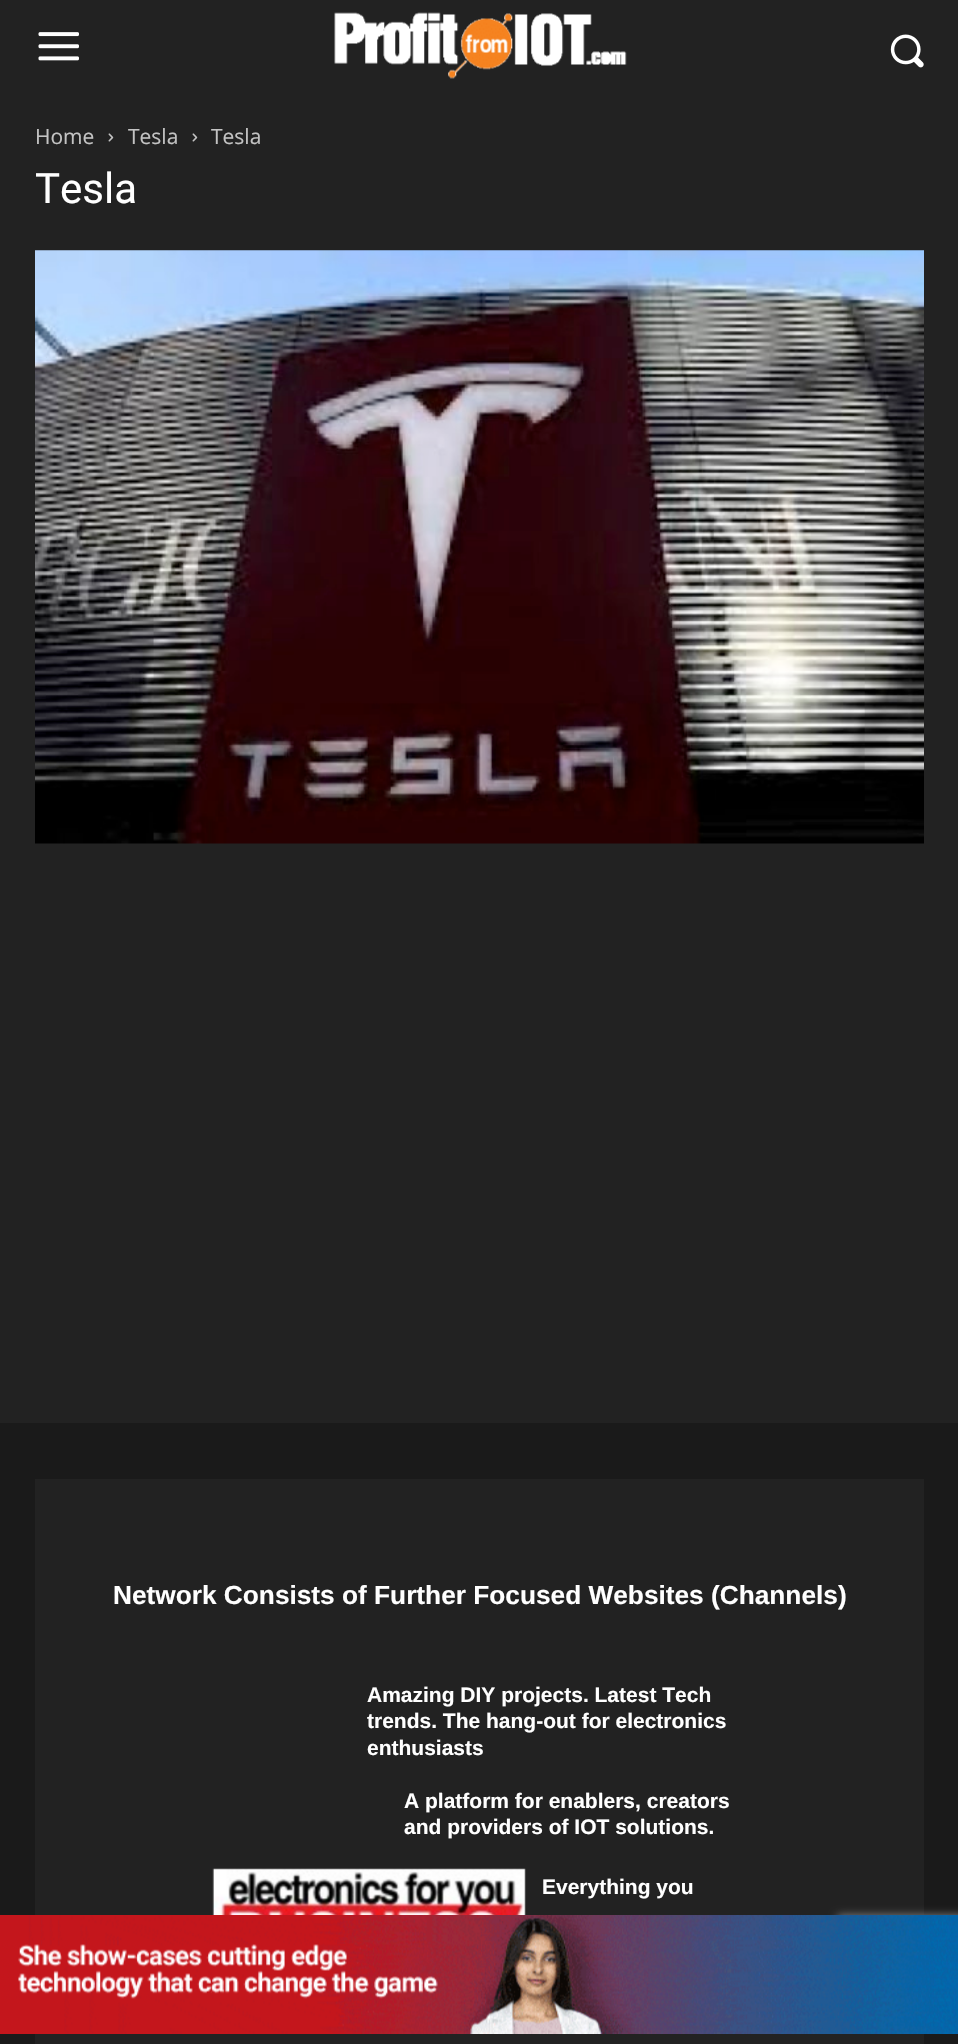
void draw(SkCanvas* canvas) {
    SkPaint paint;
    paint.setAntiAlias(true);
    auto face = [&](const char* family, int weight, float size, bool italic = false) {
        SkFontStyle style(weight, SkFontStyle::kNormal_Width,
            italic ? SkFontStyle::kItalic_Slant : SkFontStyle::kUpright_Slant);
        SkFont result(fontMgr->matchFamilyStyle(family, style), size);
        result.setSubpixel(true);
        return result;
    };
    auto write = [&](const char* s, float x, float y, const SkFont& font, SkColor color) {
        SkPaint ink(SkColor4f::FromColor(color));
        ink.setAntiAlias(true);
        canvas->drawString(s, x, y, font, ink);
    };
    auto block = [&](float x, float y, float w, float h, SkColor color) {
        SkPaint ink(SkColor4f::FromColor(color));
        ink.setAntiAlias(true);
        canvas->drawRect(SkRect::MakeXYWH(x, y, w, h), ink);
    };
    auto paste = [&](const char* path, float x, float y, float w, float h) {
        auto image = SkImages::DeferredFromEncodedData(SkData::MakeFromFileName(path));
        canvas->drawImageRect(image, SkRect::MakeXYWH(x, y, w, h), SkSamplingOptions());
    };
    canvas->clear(SkColorSetRGB(26, 26, 26));
    block(0, 0, 958, 1423, SkColorSetRGB(34, 34, 34));
    paste("pic1.png", 38, 32, 41, 29);
    paste("pic2.png", 334, 12, 293, 67);
    paste("pic3.png", 890, 34, 34, 34);
    auto kFont1 = face("Open Sans", 400, 21);
    write("Home", 35, 144, kFont1, SkColorSetRGB(195, 195, 195));
    paste("pic4.png", 108, 133, 6, 9);
    write("Tesla", 128, 144, kFont1, SkColorSetRGB(195, 195, 195));
    paste("pic4.png", 192, 133, 6, 9);
    write("Tesla", 211, 144, kFont1, SkColorSetRGB(195, 195, 195));
    auto kFont2 = face("Roboto", 400, 42);
    write("Tesla", 35, 203, kFont2, SK_ColorWHITE);
    paste("pic5.png", 35, 250, 889, 594);
    block(35, 1479, 889, 565, SkColorSetRGB(34, 34, 34));
    auto kFont3 = face("Liberation Sans", 700, 26.25f);
    write("Network Consists of Further Focused Websites (Channels)", 113, 1604, kFont3, SK_ColorWHITE);
    auto kFont4 = face("Liberation Sans", 700, 21);
    write("Amazing DIY projects. Latest Tech", 367, 1702, kFont4, SK_ColorWHITE);
    write("trends. The hang-out for electronics", 367, 1728, kFont4, SK_ColorWHITE);
    write("enthusiasts", 367, 1755, kFont4, SK_ColorWHITE);
    write("A platform for enablers, creators", 404, 1808, kFont4, SK_ColorWHITE);
    write("and providers of IOT solutions.", 404, 1834, kFont4, SK_ColorWHITE);
    paste("pic6.png", 212, 1868, 314, 47);
    write("Everything you", 542, 1894, kFont4, SK_ColorWHITE);
    paint.setColor(SkColorSetRGB(128, 128, 128));
    paint.setMaskFilter(SkMaskFilter::MakeBlur(kNormal_SkBlurStyle, 4.5f));
    canvas->drawRoundRect(SkRect::MakeXYWH(837, 1915, 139, 105), 4, 4, paint);
    paint.setMaskFilter(nullptr);
    paste("pic7.png", 0, 1915, 958, 119);
}
